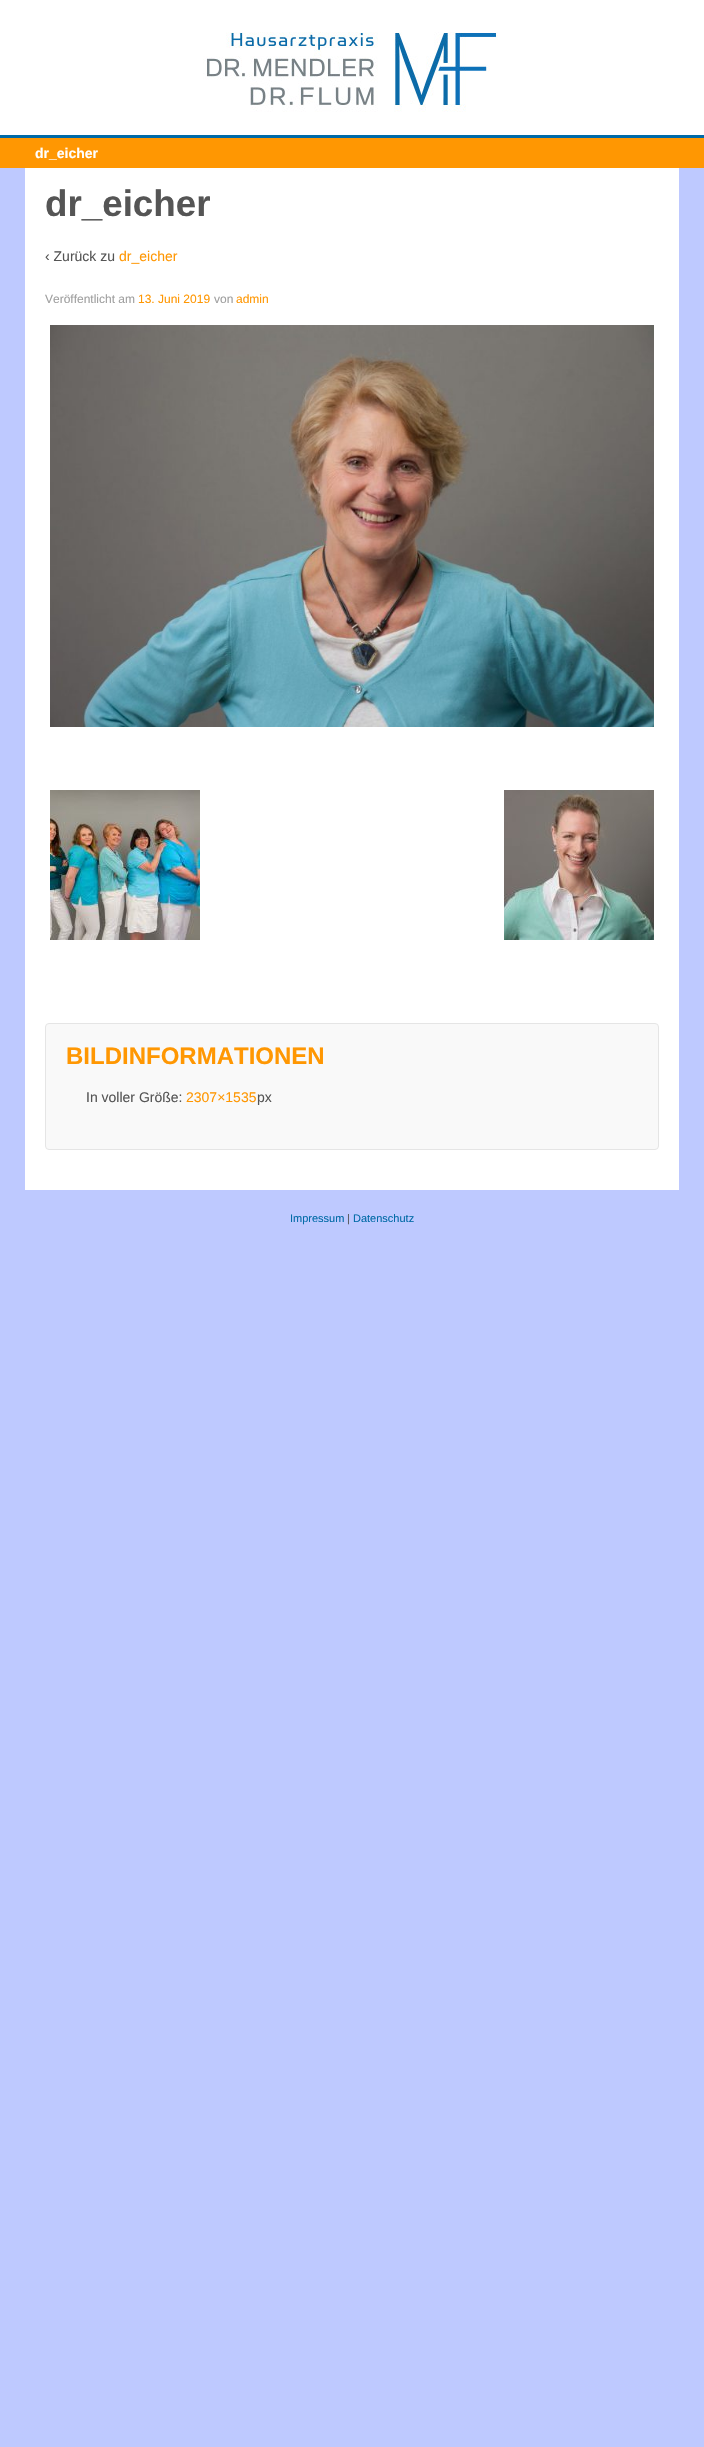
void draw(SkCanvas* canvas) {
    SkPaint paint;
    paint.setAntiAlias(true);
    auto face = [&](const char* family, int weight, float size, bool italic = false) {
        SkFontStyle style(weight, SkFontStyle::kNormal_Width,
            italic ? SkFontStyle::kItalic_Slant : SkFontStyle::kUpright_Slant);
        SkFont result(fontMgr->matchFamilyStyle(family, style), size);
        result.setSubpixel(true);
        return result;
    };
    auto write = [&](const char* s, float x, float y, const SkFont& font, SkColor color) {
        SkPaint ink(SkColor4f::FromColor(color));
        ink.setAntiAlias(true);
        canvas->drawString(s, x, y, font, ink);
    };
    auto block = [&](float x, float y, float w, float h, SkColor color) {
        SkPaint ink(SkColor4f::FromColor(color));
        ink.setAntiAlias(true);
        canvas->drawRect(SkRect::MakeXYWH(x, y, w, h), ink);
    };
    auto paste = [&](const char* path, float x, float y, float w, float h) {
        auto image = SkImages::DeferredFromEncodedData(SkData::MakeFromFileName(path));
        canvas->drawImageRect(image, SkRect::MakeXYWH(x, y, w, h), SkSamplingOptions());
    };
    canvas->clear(SkColorSetRGB(190, 201, 255));
    block(0, 0, 704, 135, SK_ColorWHITE);
    block(0, 135, 704, 3, SkColorSetRGB(0, 106, 167));
    block(0, 138, 704, 30, SkColorSetRGB(255, 151, 2));
    paste("pic1.png", 203, 32, 295, 80);
    auto kFont1 = face("Liberation Sans", 700, 14);
    write("dr_eicher", 35, 158, kFont1, SK_ColorWHITE);
    block(25, 168, 654, 1022, SK_ColorWHITE);
    auto kFont2 = face("Liberation Sans", 700, 36.75f);
    write("dr_eicher", 45, 216, kFont2, SkColorSetRGB(85, 85, 85));
    auto kFont3 = face("Liberation Sans", 400, 14);
    write("‹ Zurück zu", 45, 261, kFont3, SkColorSetRGB(85, 85, 85));
    write("dr_eicher", 119, 261, kFont3, SkColorSetRGB(255, 151, 2));
    auto kFont4 = face("Liberation Sans", 400, 12);
    write("Veröffentlicht am", 45, 303, kFont4, SkColorSetRGB(159, 159, 159));
    write("13. Juni 2019", 138, 303, kFont4, SkColorSetRGB(255, 151, 2));
    write("von", 214, 303, kFont4, SkColorSetRGB(159, 159, 159));
    write("admin", 236, 303, kFont4, SkColorSetRGB(255, 151, 2));
    paste("pic2.png", 50, 325, 604, 402);
    paste("pic3.png", 50, 790, 150, 150);
    paste("pic4.png", 504, 790, 150, 150);
    paint.setColor(SkColorSetRGB(249, 249, 249));
    canvas->drawRoundRect(SkRect::MakeXYWH(45.5f, 1023.5f, 613, 126), 3.5f, 3.5f, paint);
    paint.setStyle(SkPaint::kStroke_Style);
    paint.setStrokeWidth(1);
    paint.setColor(SkColorSetRGB(229, 229, 229));
    canvas->drawRoundRect(SkRect::MakeXYWH(45.5f, 1023.5f, 613, 126), 3.5f, 3.5f, paint);
    auto kFont5 = face("Liberation Sans", 700, 24);
    write("BILDINFORMATIONEN", 66, 1064, kFont5, SkColorSetRGB(255, 151, 2));
    write("In voller Größe:", 86, 1102, kFont3, SkColorSetRGB(85, 85, 85));
    write("2307×1535", 186, 1102, kFont3, SkColorSetRGB(255, 151, 2));
    write("px", 257, 1102, kFont3, SkColorSetRGB(85, 85, 85));
    auto kFont6 = face("Liberation Sans", 400, 11);
    write("Impressum", 290, 1222, kFont6, SkColorSetRGB(0, 106, 167));
    write("|", 347, 1222, kFont6, SkColorSetRGB(85, 85, 85));
    write("Datenschutz", 353, 1222, kFont6, SkColorSetRGB(0, 106, 167));
}
